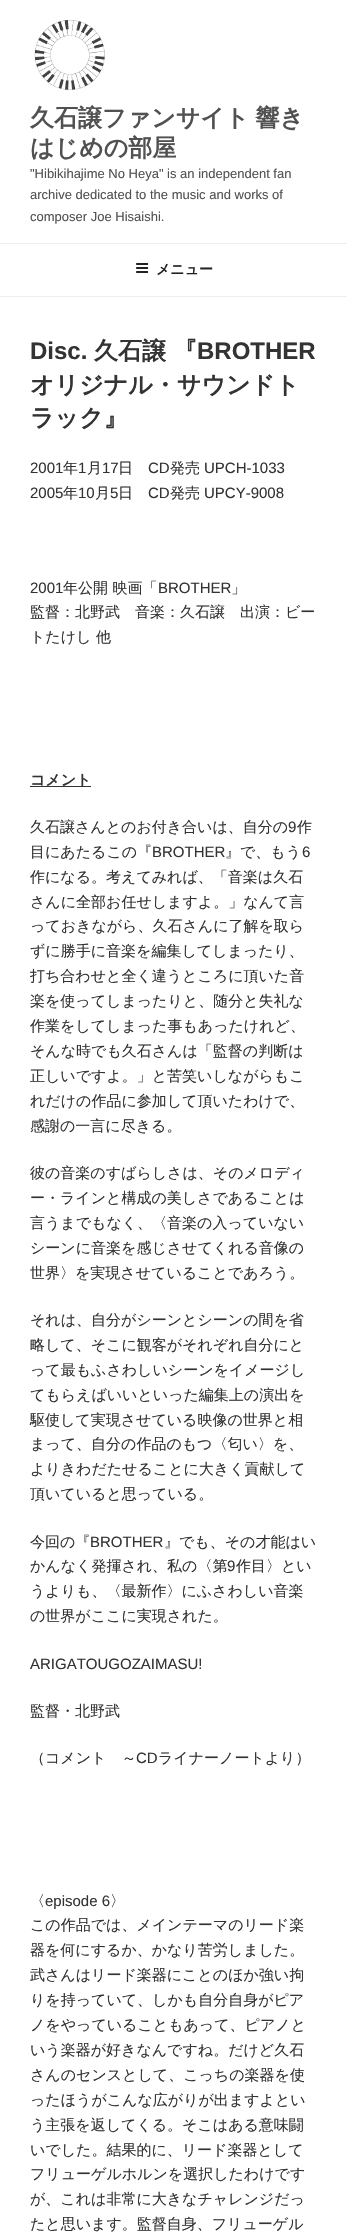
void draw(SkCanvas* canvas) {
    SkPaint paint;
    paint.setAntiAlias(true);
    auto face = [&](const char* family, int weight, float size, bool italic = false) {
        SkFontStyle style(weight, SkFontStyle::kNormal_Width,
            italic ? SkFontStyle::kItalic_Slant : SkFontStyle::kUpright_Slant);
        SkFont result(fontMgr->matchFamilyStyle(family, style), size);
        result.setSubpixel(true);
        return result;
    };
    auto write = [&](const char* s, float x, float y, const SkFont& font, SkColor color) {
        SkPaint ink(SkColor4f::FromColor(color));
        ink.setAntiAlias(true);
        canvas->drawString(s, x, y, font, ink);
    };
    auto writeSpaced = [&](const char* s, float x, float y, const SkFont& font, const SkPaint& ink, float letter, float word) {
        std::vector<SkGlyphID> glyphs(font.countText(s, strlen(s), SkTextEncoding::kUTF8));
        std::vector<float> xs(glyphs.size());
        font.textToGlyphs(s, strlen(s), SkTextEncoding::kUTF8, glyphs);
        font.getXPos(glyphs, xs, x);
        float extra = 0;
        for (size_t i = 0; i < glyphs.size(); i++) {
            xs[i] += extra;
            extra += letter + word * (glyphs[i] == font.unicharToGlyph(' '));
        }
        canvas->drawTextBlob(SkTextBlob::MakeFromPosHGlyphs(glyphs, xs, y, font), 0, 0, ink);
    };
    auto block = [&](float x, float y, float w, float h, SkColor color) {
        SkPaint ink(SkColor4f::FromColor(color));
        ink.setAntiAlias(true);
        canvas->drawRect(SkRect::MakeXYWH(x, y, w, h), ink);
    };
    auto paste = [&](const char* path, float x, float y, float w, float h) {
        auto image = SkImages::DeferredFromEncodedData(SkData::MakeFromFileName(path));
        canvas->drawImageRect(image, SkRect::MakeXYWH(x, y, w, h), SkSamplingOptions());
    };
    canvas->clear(SK_ColorWHITE);
    paste("pic1.png", 34, 20, 71, 70);
    auto kFont1 = face("WenQuanYi Zen Hei", 700, 24);
    paint.setColor(SkColorSetRGB(81, 81, 81));
    writeSpaced("久石譲ファンサイト 響き", 30, 126, kFont1, paint, 0, -1);
    write("はじめの部屋", 30, 156, kFont1, SkColorSetRGB(81, 81, 81));
    auto kFont2 = face("Liberation Sans", 400, 13);
    write("\"Hibikihajime No Heya\" is an independent fan", 30, 178, kFont2, SkColorSetRGB(81, 81, 81));
    write("archive dedicated to the music and works of", 30, 199, kFont2, SkColorSetRGB(81, 81, 81));
    write("composer Joe Hisaishi.", 30, 221, kFont2, SkColorSetRGB(81, 81, 81));
    block(0, 243, 347, 1, SkColorSetRGB(238, 238, 238));
    block(0, 296, 347, 1, SkColorSetRGB(238, 238, 238));
    paste("pic2.png", 136, 263, 13, 10);
    auto kFont3 = face("WenQuanYi Zen Hei", 700, 14);
    write("メニュー", 156, 274, kFont3, SkColorSetRGB(34, 34, 34));
    auto kFont4 = face("Liberation Sans", 700, 24);
    write("Disc.", 30, 359, kFont4, SkColorSetRGB(51, 51, 51));
    write("久石譲 『", 94, 359, kFont1, SkColorSetRGB(51, 51, 51));
    write("BROTHER", 197, 359, kFont4, SkColorSetRGB(51, 51, 51));
    write("オリジナル・サウンドト", 30, 393, kFont1, SkColorSetRGB(51, 51, 51));
    write("ラック』", 30, 426, kFont1, SkColorSetRGB(51, 51, 51));
    auto kFont5 = face("Liberation Sans", 400, 15);
    write("2001", 30, 473, kFont5, SkColorSetRGB(51, 51, 51));
    auto kFont6 = face("WenQuanYi Zen Hei", 500, 15);
    write("年", 63, 473, kFont6, SkColorSetRGB(51, 51, 51));
    write("1", 78, 473, kFont5, SkColorSetRGB(51, 51, 51));
    write("月", 87, 473, kFont6, SkColorSetRGB(51, 51, 51));
    write("17", 102, 473, kFont5, SkColorSetRGB(51, 51, 51));
    write("日", 118, 473, kFont6, SkColorSetRGB(51, 51, 51));
    write("CD", 148, 473, kFont5, SkColorSetRGB(51, 51, 51));
    write("発売", 170, 473, kFont6, SkColorSetRGB(51, 51, 51));
    write("UPCH-1033", 204, 473, kFont5, SkColorSetRGB(51, 51, 51));
    write("2005", 30, 498, kFont5, SkColorSetRGB(51, 51, 51));
    write("年", 63, 498, kFont6, SkColorSetRGB(51, 51, 51));
    write("10", 78, 498, kFont5, SkColorSetRGB(51, 51, 51));
    write("月", 95, 498, kFont6, SkColorSetRGB(51, 51, 51));
    write("5", 110, 498, kFont5, SkColorSetRGB(51, 51, 51));
    write("日", 118, 498, kFont6, SkColorSetRGB(51, 51, 51));
    write("CD", 148, 498, kFont5, SkColorSetRGB(51, 51, 51));
    write("発売", 170, 498, kFont6, SkColorSetRGB(51, 51, 51));
    write("UPCY-9008", 204, 498, kFont5, SkColorSetRGB(51, 51, 51));
    write("2001", 30, 593, kFont5, SkColorSetRGB(51, 51, 51));
    write("年公開 映画「", 63, 593, kFont6, SkColorSetRGB(51, 51, 51));
    write("BROTHER", 158, 593, kFont5, SkColorSetRGB(51, 51, 51));
    write("」", 231, 593, kFont6, SkColorSetRGB(51, 51, 51));
    write("監督：北野武　音楽：久石譲　出演：ビー", 30, 617, kFont6, SkColorSetRGB(51, 51, 51));
    write("トたけし 他", 30, 642, kFont6, SkColorSetRGB(51, 51, 51));
    block(30, 786, 61, 1, SkColorSetRGB(51, 51, 51));
    auto kFont7 = face("WenQuanYi Zen Hei", 700, 15);
    write("コメント", 30, 785, kFont7, SkColorSetRGB(51, 51, 51));
    write("久石譲さんとのお付き合いは、自分の", 30, 832, kFont6, SkColorSetRGB(51, 51, 51));
    write("9", 288, 832, kFont5, SkColorSetRGB(51, 51, 51));
    write("作", 297, 832, kFont6, SkColorSetRGB(51, 51, 51));
    write("目にあたるこの『", 30, 857, kFont6, SkColorSetRGB(51, 51, 51));
    write("BROTHER", 152, 857, kFont5, SkColorSetRGB(51, 51, 51));
    write("』で、もう", 225, 857, kFont6, SkColorSetRGB(51, 51, 51));
    write("6", 302, 857, kFont5, SkColorSetRGB(51, 51, 51));
    write("作になる。考えてみれば、「音楽は久石", 30, 882, kFont6, SkColorSetRGB(51, 51, 51));
    write("さんに全部お任せしますよ。」なんて言", 30, 907, kFont6, SkColorSetRGB(51, 51, 51));
    write("っておきながら、久石さんに了解を取ら", 30, 931, kFont6, SkColorSetRGB(51, 51, 51));
    write("ずに勝手に音楽を編集してしまったり、", 30, 956, kFont6, SkColorSetRGB(51, 51, 51));
    write("打ち合わせと全く違うところに頂いた音", 30, 981, kFont6, SkColorSetRGB(51, 51, 51));
    write("楽を使ってしまったりと、随分と失礼な", 30, 1006, kFont6, SkColorSetRGB(51, 51, 51));
    write("作業をしてしまった事もあったけれど、", 30, 1031, kFont6, SkColorSetRGB(51, 51, 51));
    write("そんな時でも久石さんは「監督の判断は", 30, 1056, kFont6, SkColorSetRGB(51, 51, 51));
    write("正しいですよ。」と苦笑いしながらもこ", 30, 1081, kFont6, SkColorSetRGB(51, 51, 51));
    write("れだけの作品に参加して頂いたわけで、", 30, 1106, kFont6, SkColorSetRGB(51, 51, 51));
    write("感謝の一言に尽きる。", 30, 1131, kFont6, SkColorSetRGB(51, 51, 51));
    write("彼の音楽のすばらしさは、そのメロディ", 30, 1178, kFont6, SkColorSetRGB(51, 51, 51));
    write("ー・ラインと構成の美しさであることは", 30, 1203, kFont6, SkColorSetRGB(51, 51, 51));
    write("言うまでもなく、〈音楽の入っていない", 30, 1228, kFont6, SkColorSetRGB(51, 51, 51));
    write("シーンに音楽を感じさせてくれる音像の", 30, 1253, kFont6, SkColorSetRGB(51, 51, 51));
    write("世界〉を実現させていることであろう。", 30, 1278, kFont6, SkColorSetRGB(51, 51, 51));
    write("それは、自分がシーンとシーンの間を省", 30, 1325, kFont6, SkColorSetRGB(51, 51, 51));
    write("略して、そこに観客がそれぞれ自分にと", 30, 1350, kFont6, SkColorSetRGB(51, 51, 51));
    write("って最もふさわしいシーンをイメージし", 30, 1375, kFont6, SkColorSetRGB(51, 51, 51));
    write("てもらえばいいといった編集上の演出を", 30, 1400, kFont6, SkColorSetRGB(51, 51, 51));
    write("駆使して実現させている映像の世界と相", 30, 1425, kFont6, SkColorSetRGB(51, 51, 51));
    write("まって、自分の作品のもつ〈匂い〉を、", 30, 1449, kFont6, SkColorSetRGB(51, 51, 51));
    write("よりきわだたせることに大きく貢献して", 30, 1474, kFont6, SkColorSetRGB(51, 51, 51));
    write("頂いていると思っている。", 30, 1499, kFont6, SkColorSetRGB(51, 51, 51));
    write("今回の『", 30, 1547, kFont6, SkColorSetRGB(51, 51, 51));
    write("BROTHER", 90, 1547, kFont5, SkColorSetRGB(51, 51, 51));
    write("』でも、その才能はい", 164, 1547, kFont6, SkColorSetRGB(51, 51, 51));
    write("かんなく発揮され、私の〈第", 30, 1571, kFont6, SkColorSetRGB(51, 51, 51));
    write("9", 227, 1571, kFont5, SkColorSetRGB(51, 51, 51));
    write("作目〉とい", 236, 1571, kFont6, SkColorSetRGB(51, 51, 51));
    write("うよりも、〈最新作〉にふさわしい音楽", 30, 1596, kFont6, SkColorSetRGB(51, 51, 51));
    write("の世界がここに実現された。", 30, 1621, kFont6, SkColorSetRGB(51, 51, 51));
    write("ARIGATOUGOZAIMASU!", 30, 1669, kFont5, SkColorSetRGB(51, 51, 51));
    write("監督・北野武", 30, 1716, kFont6, SkColorSetRGB(51, 51, 51));
    write("（コメント　～", 30, 1763, kFont6, SkColorSetRGB(51, 51, 51));
    write("CD", 136, 1763, kFont5, SkColorSetRGB(51, 51, 51));
    write("ライナーノートより）", 158, 1763, kFont6, SkColorSetRGB(51, 51, 51));
    write("〈", 30, 1906, kFont6, SkColorSetRGB(51, 51, 51));
    write("episode 6", 45, 1906, kFont5, SkColorSetRGB(51, 51, 51));
    write("〉", 110, 1906, kFont6, SkColorSetRGB(51, 51, 51));
    write("この作品では、メインテーマのリード楽", 30, 1930, kFont6, SkColorSetRGB(51, 51, 51));
    write("器を何にするか、かなり苦労しました。", 30, 1955, kFont6, SkColorSetRGB(51, 51, 51));
    write("武さんはリード楽器にことのほか強い拘", 30, 1980, kFont6, SkColorSetRGB(51, 51, 51));
    write("りを持っていて、しかも自分自身がピア", 30, 2005, kFont6, SkColorSetRGB(51, 51, 51));
    write("ノをやっていることもあって、ピアノと", 30, 2030, kFont6, SkColorSetRGB(51, 51, 51));
    write("いう楽器が好きなんですね。だけど久石", 30, 2055, kFont6, SkColorSetRGB(51, 51, 51));
    write("さんのセンスとして、こっちの楽器を使", 30, 2080, kFont6, SkColorSetRGB(51, 51, 51));
    write("ったほうがこんな広がりが出ますよとい", 30, 2105, kFont6, SkColorSetRGB(51, 51, 51));
    write("う主張を返してくる。そこはある意味闘", 30, 2130, kFont6, SkColorSetRGB(51, 51, 51));
    write("いでした。結果的に、リード楽器として", 30, 2155, kFont6, SkColorSetRGB(51, 51, 51));
    write("フリューゲルホルンを選択したわけです", 30, 2179, kFont6, SkColorSetRGB(51, 51, 51));
    write("が、これは非常に大きなチャレンジだっ", 30, 2204, kFont6, SkColorSetRGB(51, 51, 51));
    write("たと思います。監督自身、フリューゲル", 30, 2229, kFont6, SkColorSetRGB(51, 51, 51));
}
